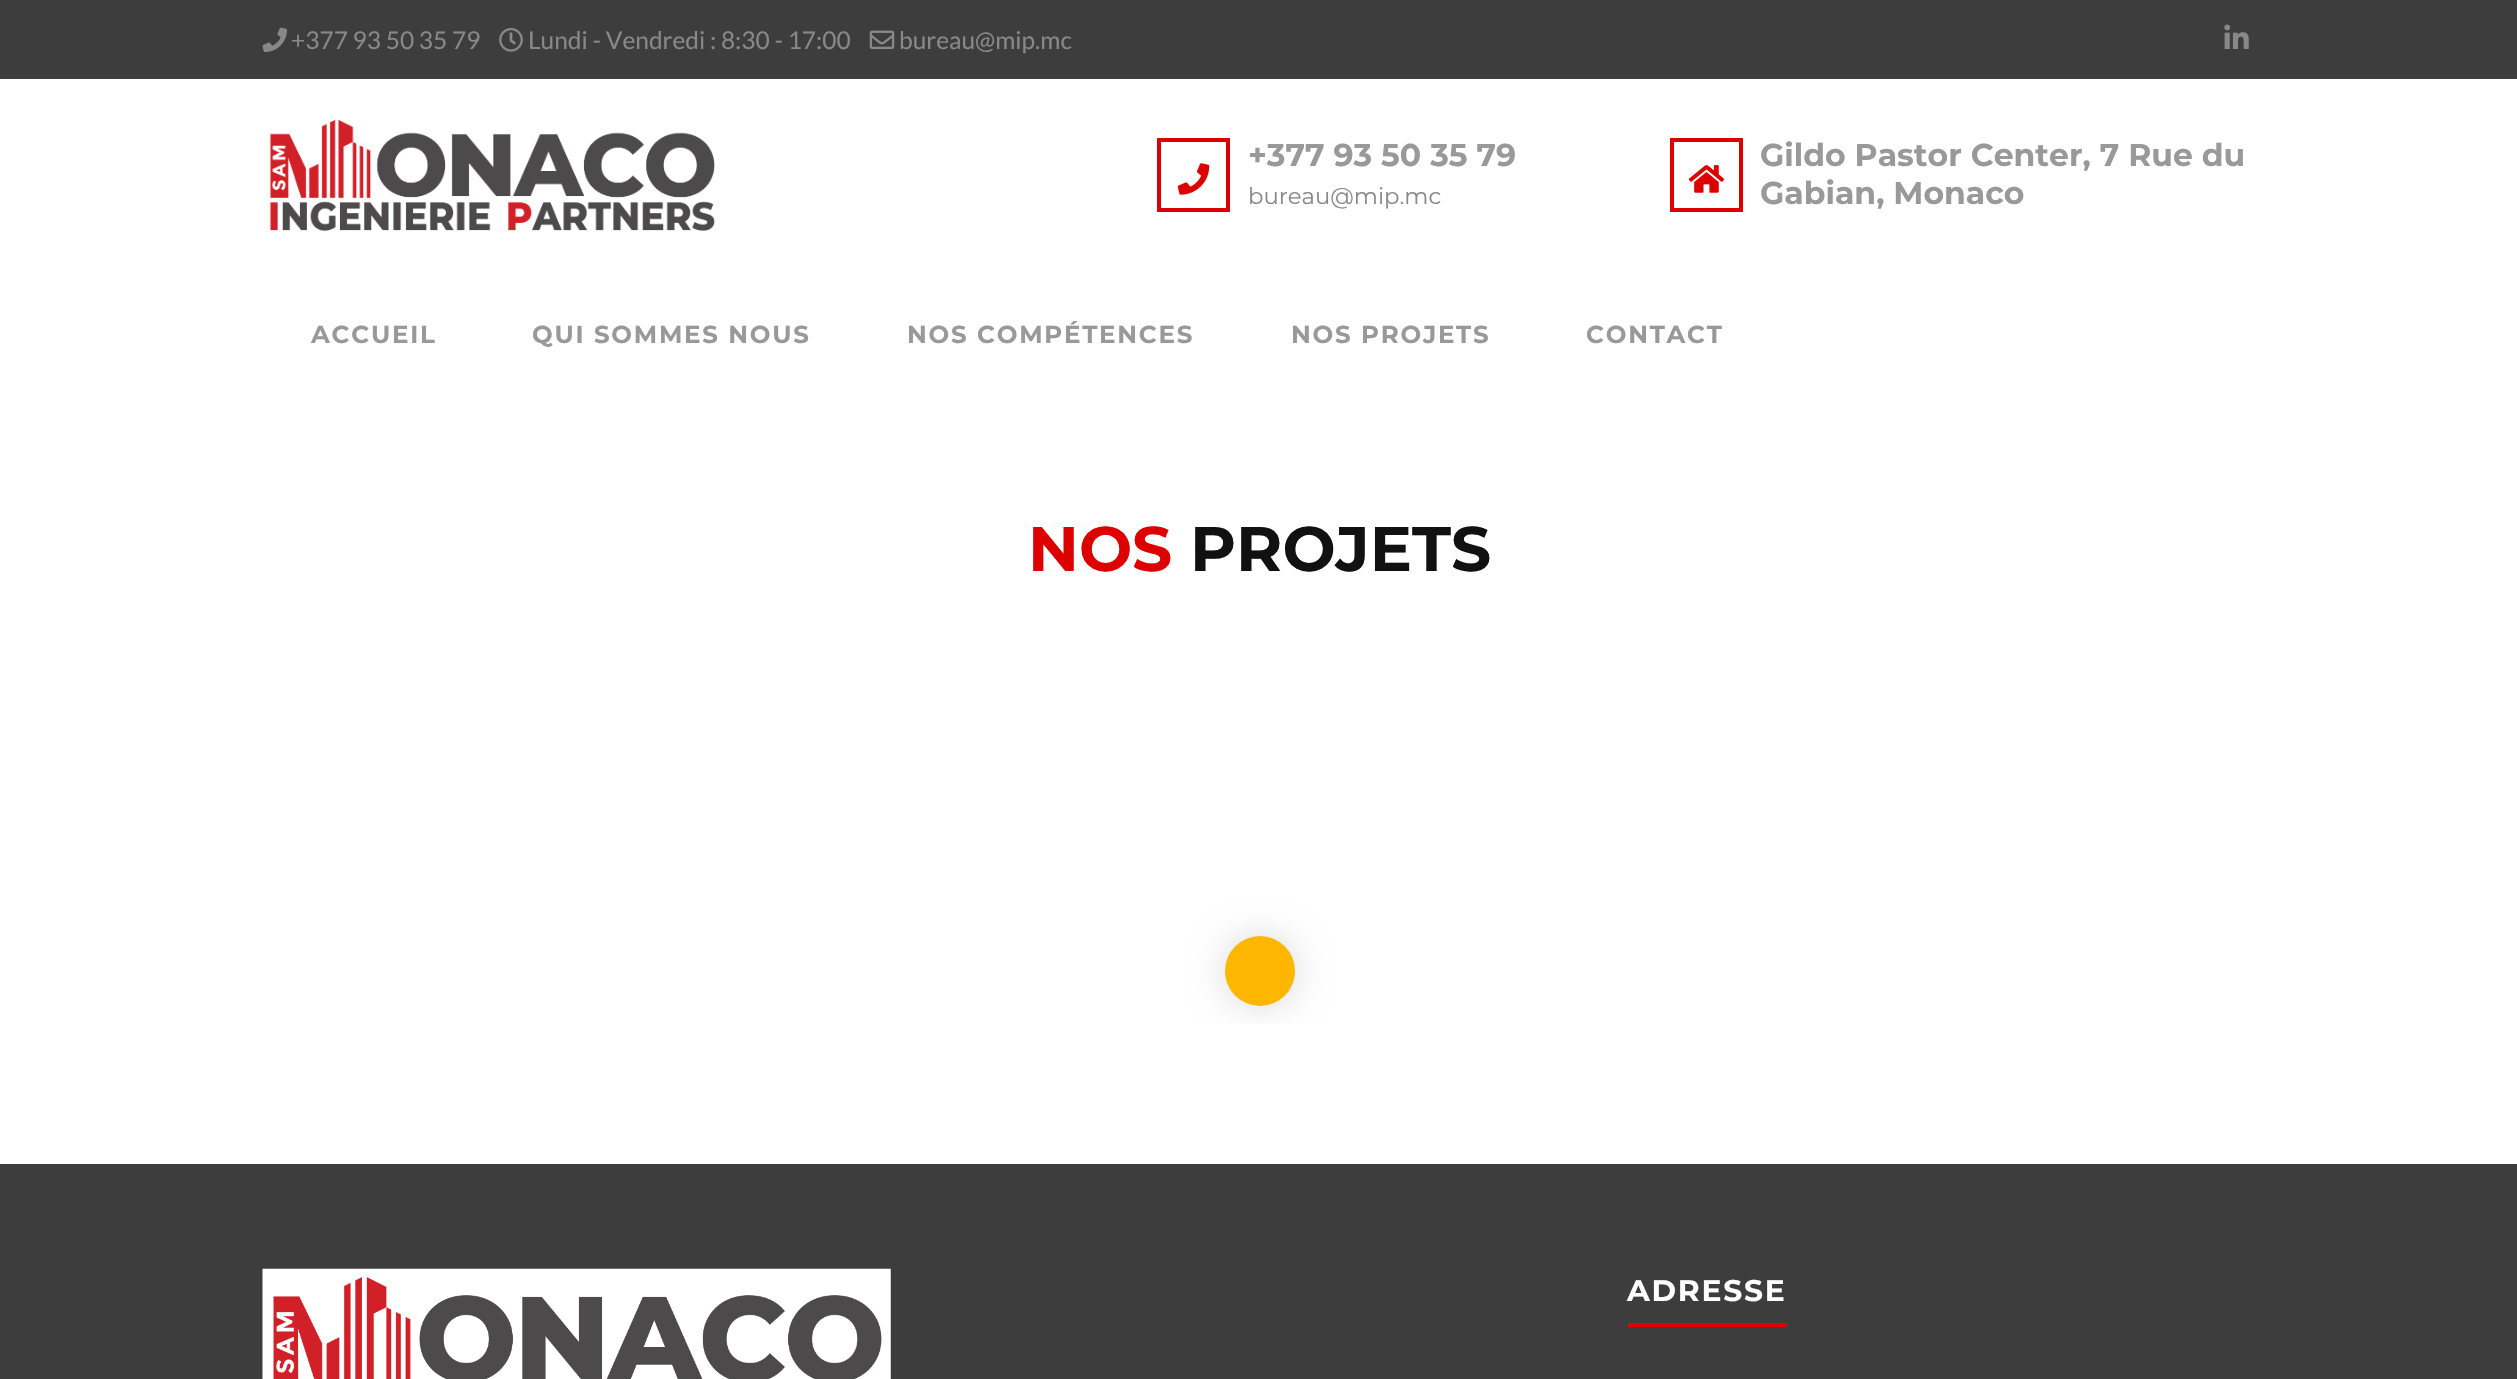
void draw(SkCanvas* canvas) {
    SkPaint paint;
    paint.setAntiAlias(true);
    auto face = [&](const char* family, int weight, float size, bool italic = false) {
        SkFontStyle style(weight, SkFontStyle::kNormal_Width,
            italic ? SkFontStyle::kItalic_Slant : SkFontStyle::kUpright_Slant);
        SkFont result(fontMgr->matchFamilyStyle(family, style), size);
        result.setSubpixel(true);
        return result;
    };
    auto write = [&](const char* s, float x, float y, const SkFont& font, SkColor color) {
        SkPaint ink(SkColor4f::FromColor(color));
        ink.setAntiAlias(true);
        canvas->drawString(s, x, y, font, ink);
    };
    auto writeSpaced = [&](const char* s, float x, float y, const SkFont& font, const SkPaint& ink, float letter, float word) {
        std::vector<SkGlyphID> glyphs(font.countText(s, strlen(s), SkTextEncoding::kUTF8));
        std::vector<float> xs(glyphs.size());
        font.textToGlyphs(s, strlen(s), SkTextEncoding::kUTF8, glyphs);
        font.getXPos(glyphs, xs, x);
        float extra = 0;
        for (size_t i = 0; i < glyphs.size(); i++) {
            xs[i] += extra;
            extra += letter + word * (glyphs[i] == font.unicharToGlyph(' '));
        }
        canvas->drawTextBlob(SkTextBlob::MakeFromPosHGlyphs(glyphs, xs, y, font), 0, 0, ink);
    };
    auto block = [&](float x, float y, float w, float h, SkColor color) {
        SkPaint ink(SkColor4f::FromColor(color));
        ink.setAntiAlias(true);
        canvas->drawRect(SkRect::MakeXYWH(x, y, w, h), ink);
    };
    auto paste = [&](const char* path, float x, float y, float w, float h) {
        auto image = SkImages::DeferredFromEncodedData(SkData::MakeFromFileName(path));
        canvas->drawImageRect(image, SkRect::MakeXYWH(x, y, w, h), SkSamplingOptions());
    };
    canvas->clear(SkColorSetRGB(61, 61, 61));
    paste("pic1.png", 262, 27, 25, 25);
    auto kFont1 = face("Lato", 400, 24.5f);
    write("+377 93 50 35 79", 291, 49, kFont1, SkColorSetRGB(136, 136, 136));
    paste("pic2.png", 499, 28, 24, 24);
    write("Lundi - Vendredi : 8:30 - 17:00", 528, 49, kFont1, SkColorSetRGB(136, 136, 136));
    paste("pic3.png", 869, 30, 26, 19);
    write("bureau@mip.mc", 899, 49, kFont1, SkColorSetRGB(136, 136, 136));
    paste("pic4.png", 2224, 24, 25, 25);
    block(0, 79, 2517, 1085, SK_ColorWHITE);
    paste("pic5.png", 269, 119, 446, 112);
    paint.setStyle(SkPaint::kStroke_Style);
    paint.setStrokeWidth(4);
    paint.setColor(SkColorSetRGB(221, 0, 0));
    canvas->drawRect(SkRect::MakeXYWH(1159, 140, 69, 70), paint);
    paste("pic6.png", 1177, 163, 33, 32);
    auto kFont2 = face("Montserrat", 700, 31.5f);
    write("+377 93 50 35 79", 1248, 166, kFont2, SkColorSetRGB(153, 153, 153));
    auto kFont3 = face("Montserrat", 100, 22.75f);
    write("bureau@mip.mc", 1248, 204, kFont3, SkColorSetRGB(136, 136, 136));
    canvas->drawRect(SkRect::MakeXYWH(1672, 140, 69, 70), paint);
    paste("pic7.png", 1688, 165, 37, 28);
    write("Gildo Pastor Center, 7 Rue du", 1760, 166, kFont2, SkColorSetRGB(153, 153, 153));
    write("Gabian, Monaco", 1760, 204, kFont2, SkColorSetRGB(153, 153, 153));
    auto kFont4 = face("Montserrat", 700, 24.5f);
    paint.setStyle(SkPaint::kFill_Style);
    paint.setColor(SkColorSetRGB(153, 153, 153));
    writeSpaced("ACCUEIL", 311, 343, kFont4, paint, 1.75f, 0);
    writeSpaced("QUI SOMMES NOUS", 532, 343, kFont4, paint, 1.75f, 0);
    writeSpaced("NOS COMPÉTENCES", 907, 343, kFont4, paint, 1.75f, 0);
    writeSpaced("NOS PROJETS", 1291, 343, kFont4, paint, 1.75f, 0);
    writeSpaced("CONTACT", 1586, 343, kFont4, paint, 1.75f, 0);
    auto kFont5 = face("Montserrat", 700, 63);
    write("NOS", 1028, 571, kFont5, SkColorSetRGB(221, 0, 0));
    write("PROJETS", 1190, 571, kFont5, SkColorSetRGB(17, 17, 17));
    canvas->save();
    canvas->clipRect(SkRect::MakeXYWH(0, 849, 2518, 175));
    paint.setColor(SkColorSetARGB(38, 0, 0, 0));
    paint.setMaskFilter(SkMaskFilter::MakeBlur(kNormal_SkBlurStyle, 17.5f));
    canvas->drawRoundRect(SkRect::MakeXYWH(1225, 936, 70, 70), 35, 35, paint);
    paint.setMaskFilter(nullptr);
    canvas->restore();
    paint.setColor(SkColorSetRGB(255, 182, 0));
    canvas->drawCircle(1260, 971, 35, paint);
    paste("pic8.png", 262, 1268, 629, 111);
    auto kFont6 = face("Montserrat", 700, 29.75f);
    paint.setColor(SK_ColorWHITE);
    writeSpaced("ADRESSE", 1627, 1301, kFont6, paint, 1.75f, 0);
    block(1628, 1323, 159, 4, SkColorSetRGB(221, 0, 0));
}
